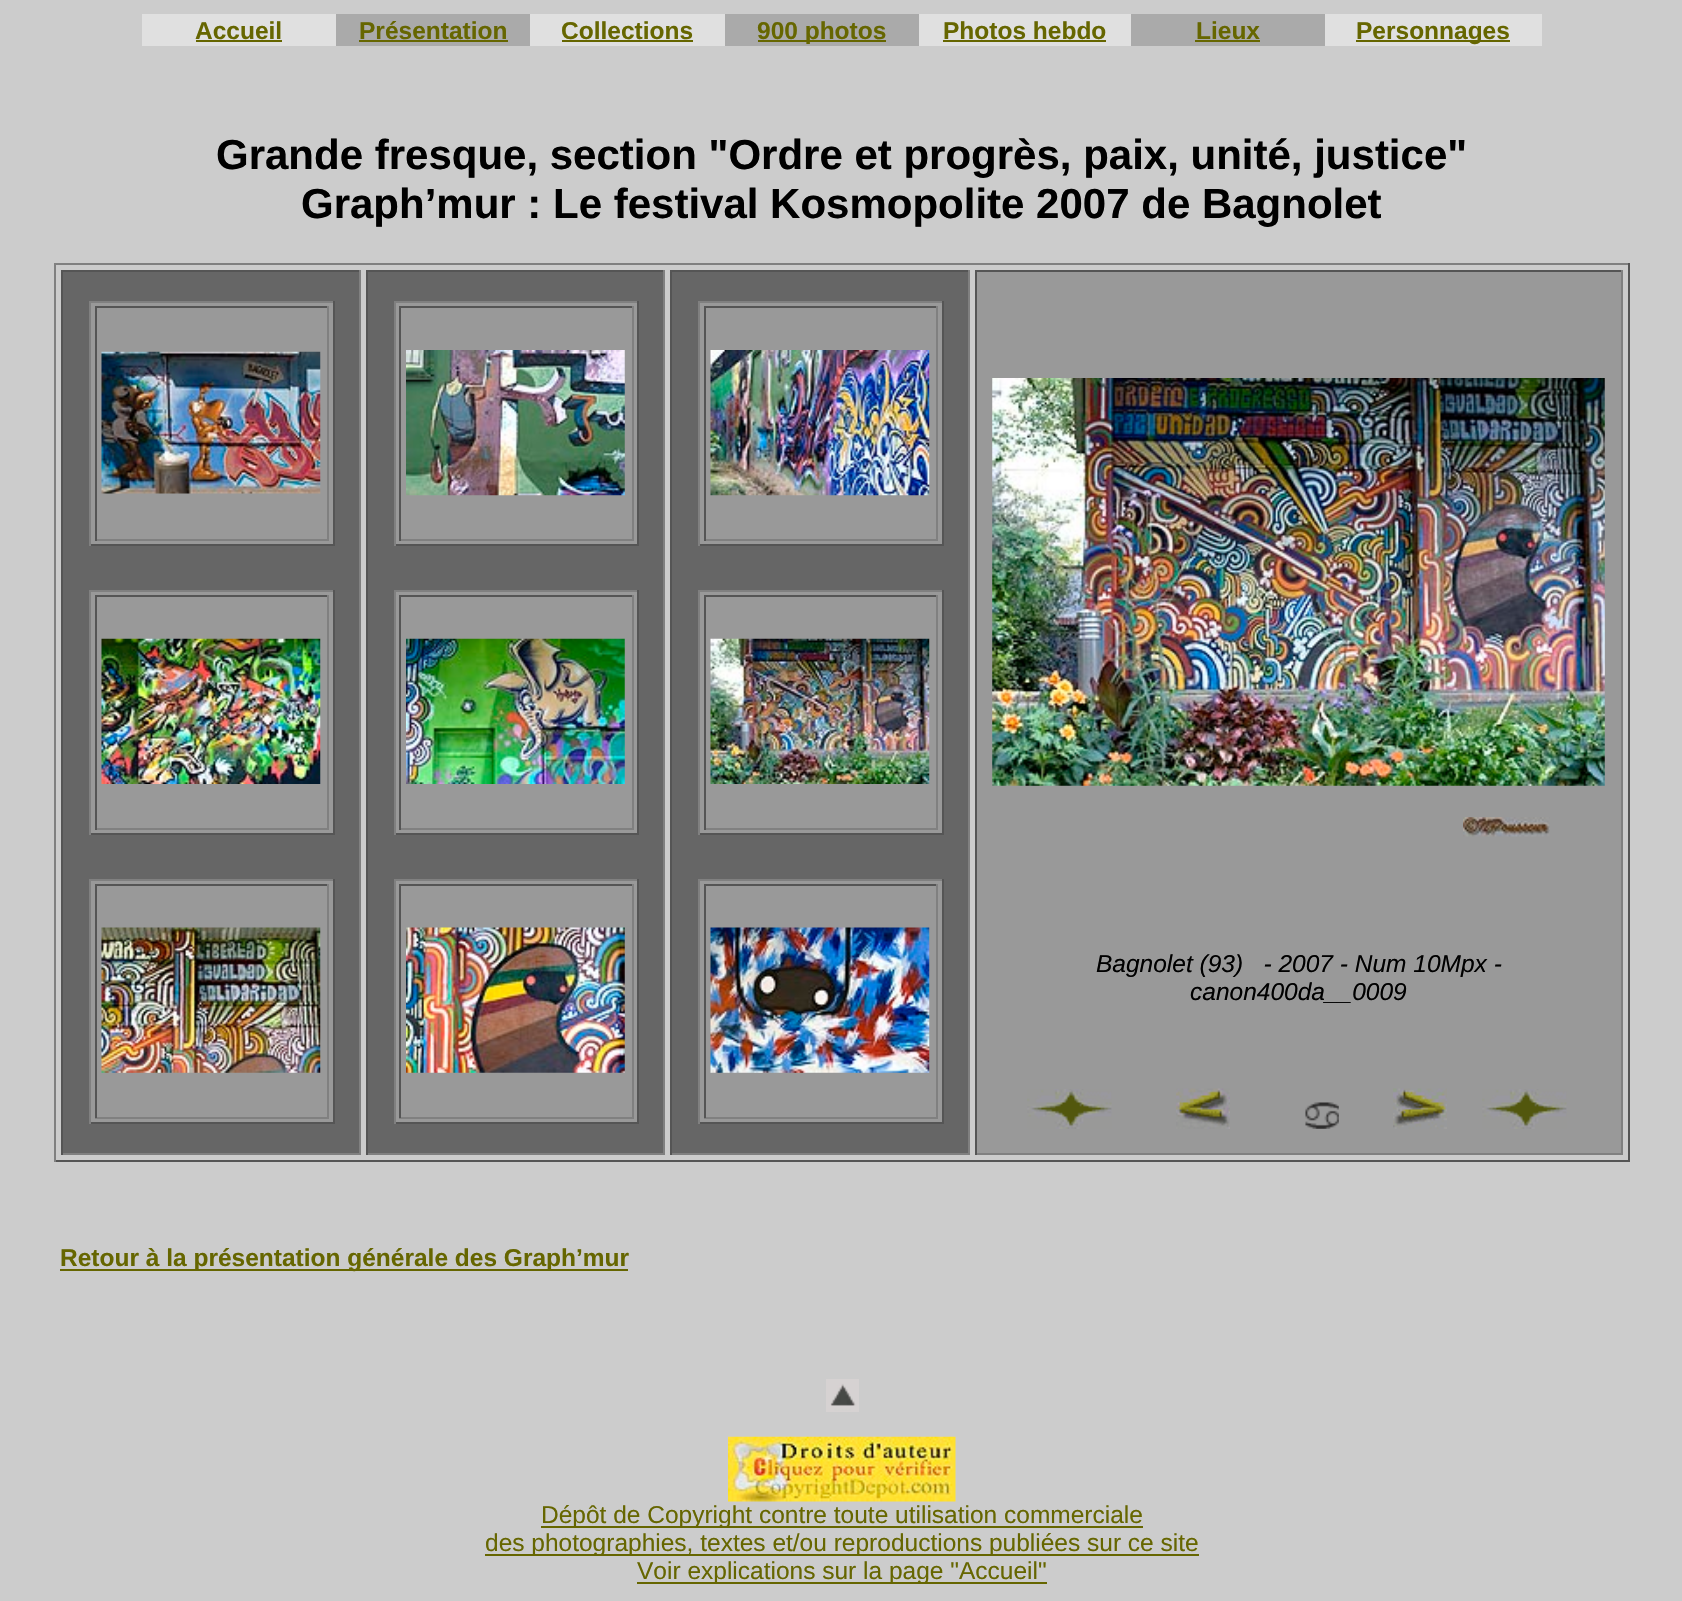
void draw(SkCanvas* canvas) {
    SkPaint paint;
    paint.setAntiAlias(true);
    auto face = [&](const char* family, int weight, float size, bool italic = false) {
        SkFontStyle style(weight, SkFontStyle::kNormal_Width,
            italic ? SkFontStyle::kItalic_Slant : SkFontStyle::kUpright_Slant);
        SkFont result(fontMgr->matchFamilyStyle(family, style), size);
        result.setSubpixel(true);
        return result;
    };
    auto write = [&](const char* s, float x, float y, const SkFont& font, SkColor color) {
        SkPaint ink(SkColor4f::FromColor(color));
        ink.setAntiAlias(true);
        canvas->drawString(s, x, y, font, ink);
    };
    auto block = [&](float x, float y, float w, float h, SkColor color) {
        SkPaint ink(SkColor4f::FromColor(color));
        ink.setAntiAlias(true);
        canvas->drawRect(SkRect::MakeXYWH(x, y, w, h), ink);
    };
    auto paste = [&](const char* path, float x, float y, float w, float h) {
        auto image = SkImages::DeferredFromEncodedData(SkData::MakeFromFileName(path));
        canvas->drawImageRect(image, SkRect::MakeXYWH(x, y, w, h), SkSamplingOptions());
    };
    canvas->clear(SkColorSetRGB(204, 204, 204));
    block(142, 14, 194, 32, SkColorSetRGB(224, 224, 224));
    auto kFont1 = face("Liberation Sans", 700, 24.5f);
    write("Accueil", 195, 39, kFont1, SkColorSetRGB(102, 102, 0));
    block(196, 40, 86, 2, SkColorSetRGB(102, 102, 0));
    block(336, 14, 194, 32, SkColorSetRGB(170, 170, 170));
    write("Présentation", 359, 39, kFont1, SkColorSetRGB(102, 102, 0));
    block(359, 40, 149, 2, SkColorSetRGB(102, 102, 0));
    block(530, 14, 195, 32, SkColorSetRGB(224, 224, 224));
    write("Collections", 561, 39, kFont1, SkColorSetRGB(102, 102, 0));
    block(562, 40, 131, 2, SkColorSetRGB(102, 102, 0));
    block(725, 14, 194, 32, SkColorSetRGB(170, 170, 170));
    block(758, 40, 128, 2, SkColorSetRGB(102, 102, 0));
    write("900 photos", 757, 39, kFont1, SkColorSetRGB(102, 102, 0));
    block(919, 14, 212, 32, SkColorSetRGB(224, 224, 224));
    write("Photos hebdo", 943, 39, kFont1, SkColorSetRGB(102, 102, 0));
    block(943, 40, 163, 2, SkColorSetRGB(102, 102, 0));
    block(1131, 14, 194, 32, SkColorSetRGB(170, 170, 170));
    write("Lieux", 1196, 39, kFont1, SkColorSetRGB(102, 102, 0));
    block(1195, 40, 65, 2, SkColorSetRGB(102, 102, 0));
    block(1325, 14, 217, 32, SkColorSetRGB(224, 224, 224));
    block(1356, 40, 154, 2, SkColorSetRGB(102, 102, 0));
    write("Personnages", 1356, 39, kFont1, SkColorSetRGB(102, 102, 0));
    auto kFont2 = face("Liberation Sans", 700, 42);
    write("Grande fresque, section \"Ordre et progrès, paix, unité, justice\"", 216, 169, kFont2, SK_ColorBLACK);
    write("Graph’mur : Le festival Kosmopolite 2007 de Bagnolet", 301, 218, kFont2, SK_ColorBLACK);
    block(54, 263, 1575, 2, SkColorSetRGB(128, 128, 128));
    block(1628, 263, 2, 899, SkColorSetRGB(85, 85, 85));
    block(54, 1160, 1575, 2, SkColorSetRGB(85, 85, 85));
    block(54, 263, 2, 899, SkColorSetRGB(128, 128, 128));
    block(63, 272, 296, 881, SkColorSetRGB(102, 102, 102));
    block(61, 270, 300, 2, SkColorSetRGB(85, 85, 85));
    block(359, 270, 2, 885, SkColorSetRGB(128, 128, 128));
    block(61, 1153, 300, 2, SkColorSetRGB(128, 128, 128));
    block(61, 270, 2, 885, SkColorSetRGB(85, 85, 85));
    block(91, 303, 242, 241, SkColorSetRGB(153, 153, 153));
    block(89, 301, 245, 2, SkColorSetRGB(128, 128, 128));
    block(333, 301, 2, 245, SkColorSetRGB(85, 85, 85));
    block(89, 544, 245, 2, SkColorSetRGB(85, 85, 85));
    block(89, 301, 2, 245, SkColorSetRGB(128, 128, 128));
    block(95, 306, 234, 2, SkColorSetRGB(85, 85, 85));
    block(327, 306, 2, 235, SkColorSetRGB(128, 128, 128));
    block(95, 539, 234, 2, SkColorSetRGB(128, 128, 128));
    block(95, 306, 2, 235, SkColorSetRGB(85, 85, 85));
    paste("pic1.png", 101, 351, 220, 143);
    block(91, 592, 242, 241, SkColorSetRGB(153, 153, 153));
    block(89, 590, 245, 2, SkColorSetRGB(128, 128, 128));
    block(333, 590, 2, 245, SkColorSetRGB(85, 85, 85));
    block(89, 833, 245, 2, SkColorSetRGB(85, 85, 85));
    block(89, 590, 2, 245, SkColorSetRGB(128, 128, 128));
    block(95, 595, 234, 2, SkColorSetRGB(85, 85, 85));
    block(327, 595, 2, 235, SkColorSetRGB(128, 128, 128));
    block(95, 828, 234, 2, SkColorSetRGB(128, 128, 128));
    block(95, 595, 2, 235, SkColorSetRGB(85, 85, 85));
    paste("pic2.png", 101, 638, 220, 146);
    block(91, 881, 242, 241, SkColorSetRGB(153, 153, 153));
    block(89, 879, 245, 2, SkColorSetRGB(128, 128, 128));
    block(333, 879, 2, 245, SkColorSetRGB(85, 85, 85));
    block(89, 1122, 245, 2, SkColorSetRGB(85, 85, 85));
    block(89, 879, 2, 245, SkColorSetRGB(128, 128, 128));
    block(95, 884, 234, 2, SkColorSetRGB(85, 85, 85));
    block(327, 884, 2, 234, SkColorSetRGB(128, 128, 128));
    block(95, 1117, 234, 2, SkColorSetRGB(128, 128, 128));
    block(95, 884, 2, 234, SkColorSetRGB(85, 85, 85));
    paste("pic3.png", 101, 927, 220, 146);
    block(368, 272, 295, 881, SkColorSetRGB(102, 102, 102));
    block(366, 270, 299, 2, SkColorSetRGB(85, 85, 85));
    block(663, 270, 2, 885, SkColorSetRGB(128, 128, 128));
    block(366, 1153, 299, 2, SkColorSetRGB(128, 128, 128));
    block(366, 270, 2, 885, SkColorSetRGB(85, 85, 85));
    block(396, 303, 241, 241, SkColorSetRGB(153, 153, 153));
    block(394, 301, 245, 2, SkColorSetRGB(128, 128, 128));
    block(637, 301, 2, 245, SkColorSetRGB(85, 85, 85));
    block(394, 544, 245, 2, SkColorSetRGB(85, 85, 85));
    block(394, 301, 2, 245, SkColorSetRGB(128, 128, 128));
    block(399, 306, 235, 2, SkColorSetRGB(85, 85, 85));
    block(632, 306, 2, 235, SkColorSetRGB(128, 128, 128));
    block(399, 539, 235, 2, SkColorSetRGB(128, 128, 128));
    block(399, 306, 2, 235, SkColorSetRGB(85, 85, 85));
    paste("pic4.png", 406, 350, 219, 146);
    block(396, 592, 241, 241, SkColorSetRGB(153, 153, 153));
    block(394, 590, 245, 2, SkColorSetRGB(128, 128, 128));
    block(637, 590, 2, 245, SkColorSetRGB(85, 85, 85));
    block(394, 833, 245, 2, SkColorSetRGB(85, 85, 85));
    block(394, 590, 2, 245, SkColorSetRGB(128, 128, 128));
    block(399, 595, 235, 2, SkColorSetRGB(85, 85, 85));
    block(632, 595, 2, 235, SkColorSetRGB(128, 128, 128));
    block(399, 828, 235, 2, SkColorSetRGB(128, 128, 128));
    block(399, 595, 2, 235, SkColorSetRGB(85, 85, 85));
    paste("pic5.png", 406, 638, 219, 146);
    block(396, 881, 241, 241, SkColorSetRGB(153, 153, 153));
    block(394, 879, 245, 2, SkColorSetRGB(128, 128, 128));
    block(637, 879, 2, 245, SkColorSetRGB(85, 85, 85));
    block(394, 1122, 245, 2, SkColorSetRGB(85, 85, 85));
    block(394, 879, 2, 245, SkColorSetRGB(128, 128, 128));
    block(399, 884, 235, 2, SkColorSetRGB(85, 85, 85));
    block(632, 884, 2, 234, SkColorSetRGB(128, 128, 128));
    block(399, 1117, 235, 2, SkColorSetRGB(128, 128, 128));
    block(399, 884, 2, 234, SkColorSetRGB(85, 85, 85));
    paste("pic6.png", 406, 927, 219, 146);
    block(672, 272, 296, 881, SkColorSetRGB(102, 102, 102));
    block(670, 270, 300, 2, SkColorSetRGB(85, 85, 85));
    block(968, 270, 2, 885, SkColorSetRGB(128, 128, 128));
    block(670, 1153, 300, 2, SkColorSetRGB(128, 128, 128));
    block(670, 270, 2, 885, SkColorSetRGB(85, 85, 85));
    block(700, 303, 242, 241, SkColorSetRGB(153, 153, 153));
    block(698, 301, 245, 2, SkColorSetRGB(128, 128, 128));
    block(942, 301, 2, 245, SkColorSetRGB(85, 85, 85));
    block(698, 544, 245, 2, SkColorSetRGB(85, 85, 85));
    block(698, 301, 2, 245, SkColorSetRGB(128, 128, 128));
    block(704, 306, 234, 2, SkColorSetRGB(85, 85, 85));
    block(936, 306, 2, 235, SkColorSetRGB(128, 128, 128));
    block(704, 539, 234, 2, SkColorSetRGB(128, 128, 128));
    block(704, 306, 2, 235, SkColorSetRGB(85, 85, 85));
    paste("pic7.png", 710, 350, 220, 146);
    block(700, 592, 242, 241, SkColorSetRGB(153, 153, 153));
    block(698, 590, 245, 2, SkColorSetRGB(128, 128, 128));
    block(942, 590, 2, 245, SkColorSetRGB(85, 85, 85));
    block(698, 833, 245, 2, SkColorSetRGB(85, 85, 85));
    block(698, 590, 2, 245, SkColorSetRGB(128, 128, 128));
    block(704, 595, 234, 2, SkColorSetRGB(85, 85, 85));
    block(936, 595, 2, 235, SkColorSetRGB(128, 128, 128));
    block(704, 828, 234, 2, SkColorSetRGB(128, 128, 128));
    block(704, 595, 2, 235, SkColorSetRGB(85, 85, 85));
    paste("pic8.png", 710, 638, 220, 146);
    block(700, 881, 242, 241, SkColorSetRGB(153, 153, 153));
    block(698, 879, 245, 2, SkColorSetRGB(128, 128, 128));
    block(942, 879, 2, 245, SkColorSetRGB(85, 85, 85));
    block(698, 1122, 245, 2, SkColorSetRGB(85, 85, 85));
    block(698, 879, 2, 245, SkColorSetRGB(128, 128, 128));
    block(704, 884, 234, 2, SkColorSetRGB(85, 85, 85));
    block(936, 884, 2, 234, SkColorSetRGB(128, 128, 128));
    block(704, 1117, 234, 2, SkColorSetRGB(128, 128, 128));
    block(704, 884, 2, 234, SkColorSetRGB(85, 85, 85));
    paste("pic9.png", 710, 927, 220, 146);
    block(977, 272, 644, 881, SkColorSetRGB(153, 153, 153));
    block(975, 270, 647, 2, SkColorSetRGB(85, 85, 85));
    block(1621, 270, 2, 885, SkColorSetRGB(128, 128, 128));
    block(975, 1153, 647, 2, SkColorSetRGB(128, 128, 128));
    block(975, 270, 2, 885, SkColorSetRGB(85, 85, 85));
    paste("pic10.png", 992, 378, 613, 408);
    paste("pic11.png", 1463, 817, 87, 20);
    auto kFont3 = face("Liberation Sans", 400, 24.5f, true);
    write("Bagnolet (93)   - 2007 - Num 10Mpx -", 1096, 972, kFont3, SK_ColorBLACK);
    write("canon400da__0009", 1190, 1000, kFont3, SK_ColorBLACK);
    paste("pic12.png", 1027, 1089, 85, 40);
    paste("pic13.png", 1176, 1088, 54, 41);
    paste("pic14.png", 1305, 1102, 34, 27);
    paste("pic15.png", 1393, 1088, 54, 41);
    paste("pic12.png", 1482, 1089, 85, 40);
    block(60, 1269, 568, 2, SkColorSetRGB(102, 102, 0));
    write("Retour à la présentation générale des Graph’mur", 60, 1266, kFont1, SkColorSetRGB(102, 102, 0));
    paste("pic16.png", 826, 1379, 33, 33);
    paste("pic17.png", 728, 1436, 228, 66);
    block(541, 1526, 602, 2, SkColorSetRGB(102, 102, 0));
    auto kFont4 = face("Liberation Sans", 400, 24.5f);
    write("Dépôt de Copyright contre toute utilisation commerciale", 541, 1523, kFont4, SkColorSetRGB(102, 102, 0));
    block(485, 1554, 714, 2, SkColorSetRGB(102, 102, 0));
    write("des photographies, textes et/ou reproductions publiées sur ce site", 485, 1551, kFont4, SkColorSetRGB(102, 102, 0));
    block(637, 1582, 410, 2, SkColorSetRGB(102, 102, 0));
    write("Voir explications sur la page \"Accueil\"", 637, 1579, kFont4, SkColorSetRGB(102, 102, 0));
}
